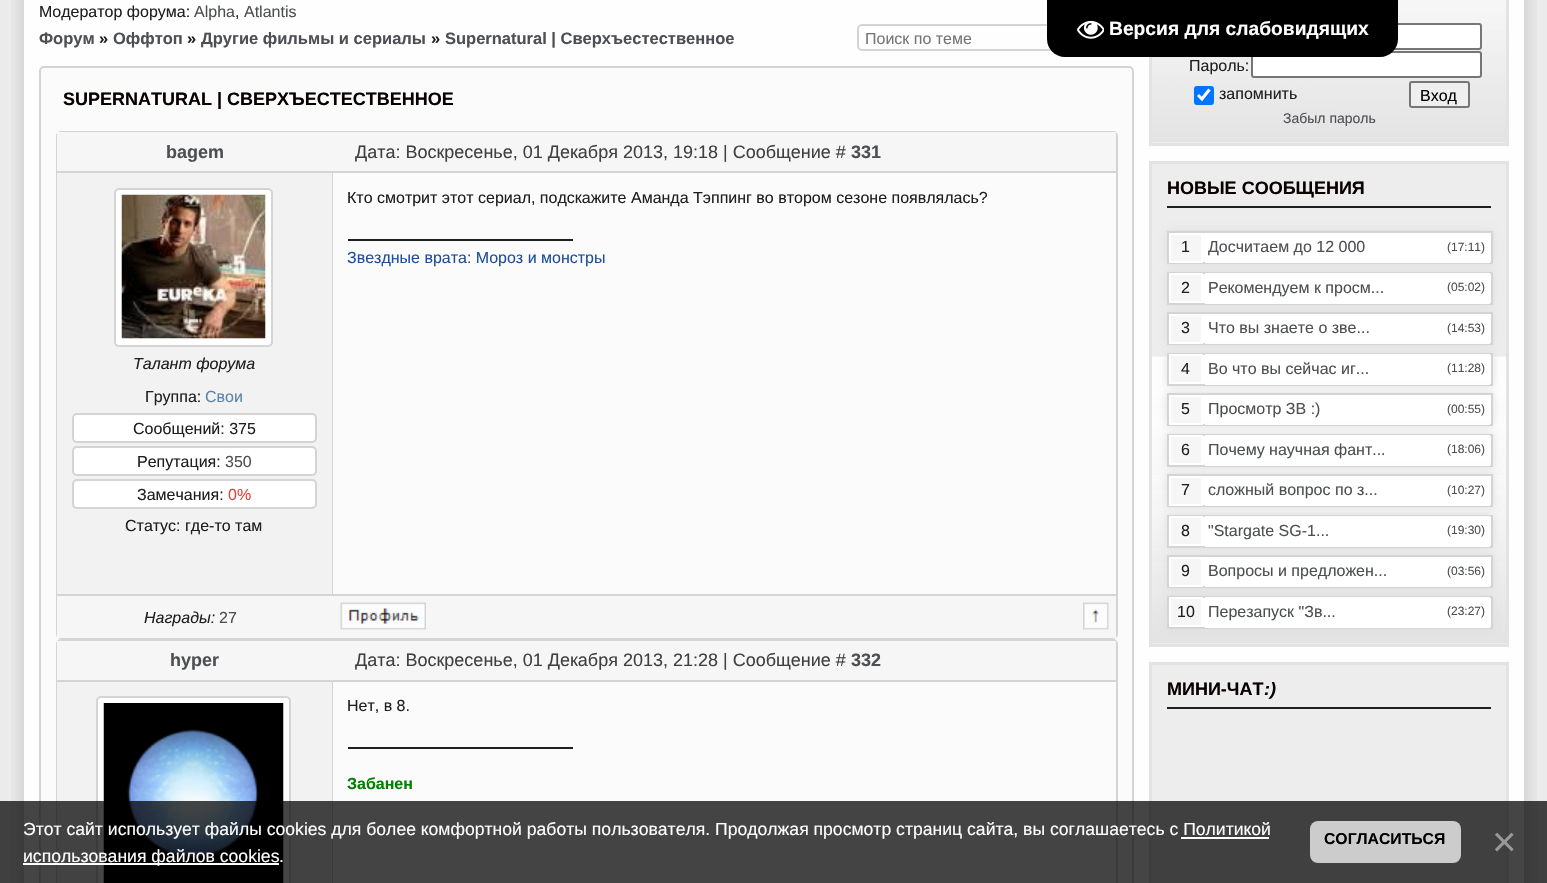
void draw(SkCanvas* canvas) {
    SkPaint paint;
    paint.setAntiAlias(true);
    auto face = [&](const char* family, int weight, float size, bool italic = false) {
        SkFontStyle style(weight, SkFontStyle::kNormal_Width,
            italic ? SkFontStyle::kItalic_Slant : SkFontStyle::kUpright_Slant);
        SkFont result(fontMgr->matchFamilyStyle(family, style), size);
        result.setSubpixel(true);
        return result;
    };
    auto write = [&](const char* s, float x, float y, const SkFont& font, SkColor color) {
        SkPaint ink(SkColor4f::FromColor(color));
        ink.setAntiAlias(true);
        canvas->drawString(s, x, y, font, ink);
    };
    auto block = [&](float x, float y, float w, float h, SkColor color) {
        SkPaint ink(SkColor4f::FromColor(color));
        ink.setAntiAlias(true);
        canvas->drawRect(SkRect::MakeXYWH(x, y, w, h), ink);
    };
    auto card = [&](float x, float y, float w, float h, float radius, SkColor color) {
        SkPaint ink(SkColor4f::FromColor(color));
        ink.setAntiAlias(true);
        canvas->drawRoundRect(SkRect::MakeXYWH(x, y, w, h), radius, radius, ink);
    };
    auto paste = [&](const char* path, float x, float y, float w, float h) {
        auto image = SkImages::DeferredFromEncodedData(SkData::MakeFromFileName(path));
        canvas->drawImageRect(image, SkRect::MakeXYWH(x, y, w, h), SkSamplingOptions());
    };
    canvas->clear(SkColorSetRGB(235, 235, 235));
    paste("pic1.png", 11, 0, 13, 883);
    paste("pic2.png", 1524, 0, 13, 883);
    block(24, 0, 1500, 883, SkColorSetRGB(254, 254, 254));
    auto kFont1 = face("Liberation Sans", 400, 16);
    write("Модератор форума:", 39, 17, kFont1, SkColorSetRGB(31, 31, 31));
    write("Alpha", 194, 17, kFont1, SkColorSetRGB(77, 79, 83));
    write(",", 235, 17, kFont1, SkColorSetRGB(31, 31, 31));
    write("Atlantis", 244, 17, kFont1, SkColorSetRGB(77, 79, 83));
    auto kFont2 = face("Liberation Sans", 700, 16.5f);
    write("Форум", 39, 44, kFont2, SkColorSetRGB(77, 79, 83));
    write("»", 99, 44, kFont2, SkColorSetRGB(31, 31, 31));
    write("Оффтоп", 113, 44, kFont2, SkColorSetRGB(77, 79, 83));
    write("»", 187, 44, kFont2, SkColorSetRGB(31, 31, 31));
    write("Другие фильмы и сериалы", 201, 44, kFont2, SkColorSetRGB(77, 79, 83));
    write("»", 431, 44, kFont2, SkColorSetRGB(31, 31, 31));
    write("Supernatural | Сверхъестественное", 445, 44, kFont2, SkColorSetRGB(77, 79, 83));
    paint.setStyle(SkPaint::kStroke_Style);
    paint.setStrokeWidth(2);
    paint.setColor(SkColorSetRGB(212, 212, 212));
    canvas->drawRoundRect(SkRect::MakeXYWH(858, 25, 223, 25), 4, 4, paint);
    write("Поиск по теме", 865, 44, kFont1, SkColorSetRGB(117, 117, 117));
    paint.setStyle(SkPaint::kFill_Style);
    paint.setColor(SkColorSetRGB(251, 251, 251));
    canvas->drawRoundRect(SkRect::MakeXYWH(40, 67, 1093, 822), 4, 4, paint);
    paint.setStyle(SkPaint::kStroke_Style);
    paint.setColor(SkColorSetRGB(212, 212, 212));
    canvas->drawRoundRect(SkRect::MakeXYWH(40, 67, 1093, 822), 4, 4, paint);
    auto kFont3 = face("Liberation Sans", 700, 18);
    write("SUPERNATURAL | СВЕРХЪЕСТЕСТВЕННОЕ", 63, 105, kFont3, SkColorSetRGB(9, 0, 0));
    canvas->drawRoundRect(SkRect::MakeXYWH(57, 132, 1060, 506), 4, 4, paint);
    block(57, 132, 1059, 39, SkColorSetRGB(246, 246, 246));
    write("bagem", 166, 158, kFont3, SkColorSetRGB(77, 79, 83));
    auto kFont4 = face("Liberation Sans", 400, 18);
    write("Дата: Воскресенье, 01 Декабря 2013, 19:18 | Сообщение #", 355, 158, kFont4, SkColorSetRGB(64, 64, 64));
    write("331", 851, 158, kFont3, SkColorSetRGB(77, 79, 83));
    write("Кто смотрит этот сериал, подскажите Аманда Тэппинг во втором сезоне появлялась?", 347, 203, kFont1, SkColorSetRGB(31, 31, 31));
    block(348, 239, 225, 2, SkColorSetRGB(31, 31, 31));
    write("Звездные врата: Мороз и монстры", 347, 263, kFont1, SkColorSetRGB(31, 79, 155));
    block(57, 173, 275, 421, SkColorSetRGB(242, 242, 242));
    block(57, 171, 1059, 2, SkColorSetRGB(212, 212, 212));
    block(332, 171, 1, 425, SkColorSetRGB(212, 212, 212));
    block(57, 594, 1059, 2, SkColorSetRGB(212, 212, 212));
    paint.setStyle(SkPaint::kFill_Style);
    paint.setColor(SK_ColorWHITE);
    canvas->drawRoundRect(SkRect::MakeXYWH(115, 189, 157, 157), 4, 4, paint);
    paint.setStyle(SkPaint::kStroke_Style);
    paint.setColor(SkColorSetRGB(212, 212, 212));
    canvas->drawRoundRect(SkRect::MakeXYWH(115, 189, 157, 157), 4, 4, paint);
    paste("pic3.png", 121, 194, 145, 145);
    auto kFont5 = face("Liberation Sans", 400, 16, true);
    write("Талант форума", 133, 369, kFont5, SkColorSetRGB(31, 31, 31));
    write("Группа:", 145, 402, kFont1, SkColorSetRGB(31, 31, 31));
    write("Свои", 205, 402, kFont1, SkColorSetRGB(92, 131, 172));
    paint.setStyle(SkPaint::kFill_Style);
    paint.setColor(SK_ColorWHITE);
    canvas->drawRoundRect(SkRect::MakeXYWH(73, 414, 243, 28), 4, 4, paint);
    paint.setStyle(SkPaint::kStroke_Style);
    paint.setColor(SkColorSetRGB(212, 212, 212));
    canvas->drawRoundRect(SkRect::MakeXYWH(73, 414, 243, 28), 4, 4, paint);
    write("Сообщений: 375", 133, 434, kFont1, SkColorSetRGB(31, 31, 31));
    paint.setStyle(SkPaint::kFill_Style);
    paint.setColor(SK_ColorWHITE);
    canvas->drawRoundRect(SkRect::MakeXYWH(73, 447, 243, 28), 4, 4, paint);
    paint.setStyle(SkPaint::kStroke_Style);
    paint.setColor(SkColorSetRGB(212, 212, 212));
    canvas->drawRoundRect(SkRect::MakeXYWH(73, 447, 243, 28), 4, 4, paint);
    write("Репутация:", 137, 467, kFont1, SkColorSetRGB(31, 31, 31));
    write("350", 225, 467, kFont1, SkColorSetRGB(77, 79, 83));
    paint.setStyle(SkPaint::kFill_Style);
    paint.setColor(SK_ColorWHITE);
    canvas->drawRoundRect(SkRect::MakeXYWH(73, 480, 243, 28), 4, 4, paint);
    paint.setStyle(SkPaint::kStroke_Style);
    paint.setColor(SkColorSetRGB(212, 212, 212));
    canvas->drawRoundRect(SkRect::MakeXYWH(73, 480, 243, 28), 4, 4, paint);
    write("Замечания:", 137, 500, kFont1, SkColorSetRGB(31, 31, 31));
    write("0%", 228, 500, kFont1, SkColorSetRGB(223, 69, 56));
    write("Статус: где-то там", 125, 531, kFont1, SkColorSetRGB(31, 31, 31));
    block(57, 596, 1059, 42, SkColorSetRGB(246, 246, 246));
    write("Награды:", 144, 623, kFont5, SkColorSetRGB(31, 31, 31));
    write("27", 219, 623, kFont1, SkColorSetRGB(77, 79, 83));
    paste("pic4.png", 340, 602, 86, 28);
    paste("pic5.png", 1083, 602, 26, 28);
    canvas->drawRoundRect(SkRect::MakeXYWH(57, 640, 1060, 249), 4, 4, paint);
    block(57, 641, 1059, 39, SkColorSetRGB(246, 246, 246));
    write("hyper", 170, 666, kFont3, SkColorSetRGB(77, 79, 83));
    write("Дата: Воскресенье, 01 Декабря 2013, 21:28 | Сообщение #", 355, 666, kFont4, SkColorSetRGB(64, 64, 64));
    write("332", 851, 666, kFont3, SkColorSetRGB(77, 79, 83));
    block(57, 682, 275, 201, SkColorSetRGB(242, 242, 242));
    block(57, 680, 1059, 2, SkColorSetRGB(212, 212, 212));
    block(332, 680, 1, 203, SkColorSetRGB(212, 212, 212));
    paint.setStyle(SkPaint::kFill_Style);
    paint.setColor(SK_ColorWHITE);
    canvas->drawRoundRect(SkRect::MakeXYWH(97, 697, 193, 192), 4, 4, paint);
    paint.setStyle(SkPaint::kStroke_Style);
    paint.setColor(SkColorSetRGB(212, 212, 212));
    canvas->drawRoundRect(SkRect::MakeXYWH(97, 697, 193, 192), 4, 4, paint);
    paste("pic6.png", 103, 703, 181, 180);
    write("Нет, в 8.", 347, 711, kFont1, SkColorSetRGB(31, 31, 31));
    block(348, 747, 225, 2, SkColorSetRGB(31, 31, 31));
    auto kFont6 = face("Liberation Sans", 700, 16);
    write("Забанен", 347, 789, kFont6, SkColorSetRGB(0, 128, 0));
    block(1152, 142, 354, 1, SkColorSetRGB(237, 237, 237));
    paste("pic7.png", 1152, 0, 354, 142);
    paint.setStrokeWidth(3);
    paint.setColor(SkColorSetRGB(227, 227, 227));
    canvas->drawRect(SkRect::MakeXYWH(1150.5f, -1.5f, 357, 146), paint);
    paint.setStyle(SkPaint::kFill_Style);
    paint.setColor(SK_ColorWHITE);
    canvas->drawRoundRect(SkRect::MakeXYWH(1252, 24, 229, 25), 2, 2, paint);
    paint.setStyle(SkPaint::kStroke_Style);
    paint.setStrokeWidth(2);
    paint.setColor(SkColorSetRGB(118, 118, 118));
    canvas->drawRoundRect(SkRect::MakeXYWH(1252, 24, 229, 25), 2, 2, paint);
    write("Пароль:", 1189, 71, kFont1, SkColorSetRGB(31, 31, 31));
    paint.setStyle(SkPaint::kFill_Style);
    paint.setColor(SK_ColorWHITE);
    canvas->drawRoundRect(SkRect::MakeXYWH(1252, 52, 229, 25), 2, 2, paint);
    paint.setStyle(SkPaint::kStroke_Style);
    paint.setColor(SkColorSetRGB(118, 118, 118));
    canvas->drawRoundRect(SkRect::MakeXYWH(1252, 52, 229, 25), 2, 2, paint);
    card(1194, 86, 20, 19, 3, SkColorSetRGB(0, 117, 255));
    paint.setStrokeWidth(3.1f);
    paint.setColor(SK_ColorWHITE);
    canvas->drawPath(SkPathBuilder().moveTo(1198, 95).lineTo(1202, 99).lineTo(1209.5f, 89.5f).detach(), paint);
    write("запомнить", 1219, 99, kFont1, SkColorSetRGB(31, 31, 31));
    paint.setStyle(SkPaint::kFill_Style);
    paint.setColor(SkColorSetRGB(239, 239, 239));
    canvas->drawRoundRect(SkRect::MakeXYWH(1410, 82, 59, 25), 2, 2, paint);
    paint.setStyle(SkPaint::kStroke_Style);
    paint.setStrokeWidth(2);
    paint.setColor(SkColorSetRGB(118, 118, 118));
    canvas->drawRoundRect(SkRect::MakeXYWH(1410, 82, 59, 25), 2, 2, paint);
    write("Вход", 1420, 101, kFont1, SK_ColorBLACK);
    auto kFont7 = face("Liberation Sans", 400, 14);
    write("Забыл пароль", 1283, 123, kFont7, SkColorSetRGB(77, 79, 83));
    block(1152, 164, 354, 480, SkColorSetRGB(237, 237, 237));
    paste("pic8.png", 1152, 356, 354, 287);
    paint.setStrokeWidth(3);
    paint.setColor(SkColorSetRGB(227, 227, 227));
    canvas->drawRect(SkRect::MakeXYWH(1150.5f, 162.5f, 357, 483), paint);
    write("НОВЫЕ СООБЩЕНИЯ", 1167, 194, kFont3, SkColorSetRGB(9, 0, 0));
    block(1167, 206, 324, 2, SkColorSetRGB(31, 31, 31));
    paint.setStyle(SkPaint::kFill_Style);
    paint.setColor(SkColorSetRGB(221, 221, 221));
    paint.setMaskFilter(SkMaskFilter::MakeBlur(kNormal_SkBlurStyle, 4));
    canvas->drawRect(SkRect::MakeXYWH(1167, 231, 326, 33), paint);
    paint.setMaskFilter(nullptr);
    block(1203, 233, 288, 29, SK_ColorWHITE);
    paint.setStyle(SkPaint::kStroke_Style);
    paint.setStrokeWidth(2);
    paint.setColor(SkColorSetRGB(212, 212, 212));
    canvas->drawRect(SkRect::MakeXYWH(1168, 232, 324, 31), paint);
    paint.setStyle(SkPaint::kFill_Style);
    paint.setColor(SkColorSetRGB(221, 221, 221));
    paint.setMaskFilter(SkMaskFilter::MakeBlur(kNormal_SkBlurStyle, 4));
    canvas->drawRect(SkRect::MakeXYWH(1167, 272, 326, 33), paint);
    paint.setMaskFilter(nullptr);
    paint.setColor(SkColorSetRGB(246, 246, 246));
    canvas->drawRect(SkRect::MakeXYWH(1170, 234, 32, 28), paint);
    paint.setStyle(SkPaint::kStroke_Style);
    paint.setColor(SK_ColorWHITE);
    canvas->drawRect(SkRect::MakeXYWH(1170, 234, 32, 28), paint);
    write("1", 1181, 252, kFont1, SkColorSetRGB(31, 31, 31));
    block(1205, 262, 285, 1, SkColorSetRGB(254, 254, 254));
    write("Досчитаем до 12 000", 1208, 252, kFont1, SkColorSetRGB(77, 79, 83));
    auto kFont8 = face("Liberation Sans", 400, 12);
    write("(17:11)", 1447, 251, kFont8, SkColorSetRGB(77, 79, 83));
    block(1203, 274, 288, 29, SK_ColorWHITE);
    paint.setColor(SkColorSetRGB(212, 212, 212));
    canvas->drawRect(SkRect::MakeXYWH(1168, 273, 324, 31), paint);
    paint.setStyle(SkPaint::kFill_Style);
    paint.setColor(SkColorSetRGB(221, 221, 221));
    paint.setMaskFilter(SkMaskFilter::MakeBlur(kNormal_SkBlurStyle, 4));
    canvas->drawRect(SkRect::MakeXYWH(1167, 312, 326, 33), paint);
    paint.setMaskFilter(nullptr);
    paint.setColor(SkColorSetRGB(246, 246, 246));
    canvas->drawRect(SkRect::MakeXYWH(1170, 274, 32, 28), paint);
    paint.setStyle(SkPaint::kStroke_Style);
    paint.setColor(SK_ColorWHITE);
    canvas->drawRect(SkRect::MakeXYWH(1170, 274, 32, 28), paint);
    write("2", 1181, 293, kFont1, SkColorSetRGB(31, 31, 31));
    block(1205, 273, 285, 1, SkColorSetRGB(254, 254, 254));
    block(1205, 303, 285, 1, SK_ColorWHITE);
    write("Рекомендуем к просм...", 1208, 293, kFont1, SkColorSetRGB(77, 79, 83));
    write("(05:02)", 1447, 291, kFont8, SkColorSetRGB(77, 79, 83));
    block(1203, 314, 288, 29, SK_ColorWHITE);
    paint.setColor(SkColorSetRGB(212, 212, 212));
    canvas->drawRect(SkRect::MakeXYWH(1168, 313, 324, 31), paint);
    paint.setStyle(SkPaint::kFill_Style);
    paint.setColor(SkColorSetRGB(221, 221, 221));
    paint.setMaskFilter(SkMaskFilter::MakeBlur(kNormal_SkBlurStyle, 4));
    canvas->drawRect(SkRect::MakeXYWH(1167, 353, 326, 33), paint);
    paint.setMaskFilter(nullptr);
    paint.setColor(SkColorSetRGB(246, 246, 246));
    canvas->drawRect(SkRect::MakeXYWH(1170, 315, 32, 28), paint);
    paint.setStyle(SkPaint::kStroke_Style);
    paint.setColor(SK_ColorWHITE);
    canvas->drawRect(SkRect::MakeXYWH(1170, 315, 32, 28), paint);
    write("3", 1181, 333, kFont1, SkColorSetRGB(31, 31, 31));
    block(1205, 343, 285, 1, SkColorSetRGB(254, 254, 254));
    write("Что вы знаете о зве...", 1208, 333, kFont1, SkColorSetRGB(77, 79, 83));
    write("(14:53)", 1447, 332, kFont8, SkColorSetRGB(77, 79, 83));
    block(1203, 355, 288, 29, SK_ColorWHITE);
    paint.setColor(SkColorSetRGB(212, 212, 212));
    canvas->drawRect(SkRect::MakeXYWH(1168, 354, 324, 31), paint);
    paint.setStyle(SkPaint::kFill_Style);
    paint.setColor(SkColorSetRGB(221, 221, 221));
    paint.setMaskFilter(SkMaskFilter::MakeBlur(kNormal_SkBlurStyle, 4));
    canvas->drawRect(SkRect::MakeXYWH(1167, 393, 326, 33), paint);
    paint.setMaskFilter(nullptr);
    paint.setColor(SkColorSetRGB(246, 246, 246));
    canvas->drawRect(SkRect::MakeXYWH(1170, 355, 32, 28), paint);
    paint.setStyle(SkPaint::kStroke_Style);
    paint.setColor(SK_ColorWHITE);
    canvas->drawRect(SkRect::MakeXYWH(1170, 355, 32, 28), paint);
    write("4", 1181, 374, kFont1, SkColorSetRGB(31, 31, 31));
    block(1205, 354, 285, 1, SkColorSetRGB(254, 254, 254));
    block(1205, 384, 285, 1, SK_ColorWHITE);
    write("Во что вы сейчас иг...", 1208, 374, kFont1, SkColorSetRGB(77, 79, 83));
    write("(11:28)", 1447, 372, kFont8, SkColorSetRGB(77, 79, 83));
    block(1203, 395, 288, 29, SK_ColorWHITE);
    paint.setColor(SkColorSetRGB(212, 212, 212));
    canvas->drawRect(SkRect::MakeXYWH(1168, 394, 324, 31), paint);
    paint.setStyle(SkPaint::kFill_Style);
    paint.setColor(SkColorSetRGB(221, 221, 221));
    paint.setMaskFilter(SkMaskFilter::MakeBlur(kNormal_SkBlurStyle, 4));
    canvas->drawRect(SkRect::MakeXYWH(1167, 434, 326, 33), paint);
    paint.setMaskFilter(nullptr);
    paint.setColor(SkColorSetRGB(246, 246, 246));
    canvas->drawRect(SkRect::MakeXYWH(1170, 396, 32, 28), paint);
    paint.setStyle(SkPaint::kStroke_Style);
    paint.setColor(SK_ColorWHITE);
    canvas->drawRect(SkRect::MakeXYWH(1170, 396, 32, 28), paint);
    write("5", 1181, 414, kFont1, SkColorSetRGB(31, 31, 31));
    block(1205, 424, 285, 1, SkColorSetRGB(254, 254, 254));
    write("Просмотр ЗВ :)", 1208, 414, kFont1, SkColorSetRGB(77, 79, 83));
    write("(00:55)", 1447, 413, kFont8, SkColorSetRGB(77, 79, 83));
    block(1203, 436, 288, 29, SK_ColorWHITE);
    paint.setColor(SkColorSetRGB(212, 212, 212));
    canvas->drawRect(SkRect::MakeXYWH(1168, 435, 324, 31), paint);
    paint.setStyle(SkPaint::kFill_Style);
    paint.setColor(SkColorSetRGB(221, 221, 221));
    paint.setMaskFilter(SkMaskFilter::MakeBlur(kNormal_SkBlurStyle, 4));
    canvas->drawRect(SkRect::MakeXYWH(1167, 474, 326, 33), paint);
    paint.setMaskFilter(nullptr);
    paint.setColor(SkColorSetRGB(246, 246, 246));
    canvas->drawRect(SkRect::MakeXYWH(1170, 436, 32, 28), paint);
    paint.setStyle(SkPaint::kStroke_Style);
    paint.setColor(SK_ColorWHITE);
    canvas->drawRect(SkRect::MakeXYWH(1170, 436, 32, 28), paint);
    write("6", 1181, 455, kFont1, SkColorSetRGB(31, 31, 31));
    block(1205, 435, 285, 1, SkColorSetRGB(254, 254, 254));
    block(1205, 465, 285, 1, SK_ColorWHITE);
    write("Почему научная фант...", 1208, 455, kFont1, SkColorSetRGB(77, 79, 83));
    write("(18:06)", 1447, 453, kFont8, SkColorSetRGB(77, 79, 83));
    block(1203, 476, 288, 29, SK_ColorWHITE);
    paint.setColor(SkColorSetRGB(212, 212, 212));
    canvas->drawRect(SkRect::MakeXYWH(1168, 475, 324, 31), paint);
    paint.setStyle(SkPaint::kFill_Style);
    paint.setColor(SkColorSetRGB(221, 221, 221));
    paint.setMaskFilter(SkMaskFilter::MakeBlur(kNormal_SkBlurStyle, 4));
    canvas->drawRect(SkRect::MakeXYWH(1167, 515, 326, 33), paint);
    paint.setMaskFilter(nullptr);
    paint.setColor(SkColorSetRGB(246, 246, 246));
    canvas->drawRect(SkRect::MakeXYWH(1170, 477, 32, 28), paint);
    paint.setStyle(SkPaint::kStroke_Style);
    paint.setColor(SK_ColorWHITE);
    canvas->drawRect(SkRect::MakeXYWH(1170, 477, 32, 28), paint);
    write("7", 1181, 495, kFont1, SkColorSetRGB(31, 31, 31));
    block(1205, 505, 285, 1, SkColorSetRGB(254, 254, 254));
    write("сложный вопрос по з...", 1208, 495, kFont1, SkColorSetRGB(77, 79, 83));
    write("(10:27)", 1447, 494, kFont8, SkColorSetRGB(77, 79, 83));
    block(1203, 517, 288, 29, SK_ColorWHITE);
    paint.setColor(SkColorSetRGB(212, 212, 212));
    canvas->drawRect(SkRect::MakeXYWH(1168, 516, 324, 31), paint);
    paint.setStyle(SkPaint::kFill_Style);
    paint.setColor(SkColorSetRGB(221, 221, 221));
    paint.setMaskFilter(SkMaskFilter::MakeBlur(kNormal_SkBlurStyle, 4));
    canvas->drawRect(SkRect::MakeXYWH(1167, 555, 326, 33), paint);
    paint.setMaskFilter(nullptr);
    paint.setColor(SkColorSetRGB(246, 246, 246));
    canvas->drawRect(SkRect::MakeXYWH(1170, 517, 32, 28), paint);
    paint.setStyle(SkPaint::kStroke_Style);
    paint.setColor(SK_ColorWHITE);
    canvas->drawRect(SkRect::MakeXYWH(1170, 517, 32, 28), paint);
    write("8", 1181, 536, kFont1, SkColorSetRGB(31, 31, 31));
    block(1205, 516, 285, 1, SkColorSetRGB(254, 254, 254));
    block(1205, 546, 285, 1, SK_ColorWHITE);
    write("\"Stargate SG-1...", 1208, 536, kFont1, SkColorSetRGB(77, 79, 83));
    write("(19:30)", 1447, 534, kFont8, SkColorSetRGB(77, 79, 83));
    block(1203, 557, 288, 29, SK_ColorWHITE);
    paint.setColor(SkColorSetRGB(212, 212, 212));
    canvas->drawRect(SkRect::MakeXYWH(1168, 556, 324, 31), paint);
    paint.setStyle(SkPaint::kFill_Style);
    paint.setColor(SkColorSetRGB(221, 221, 221));
    paint.setMaskFilter(SkMaskFilter::MakeBlur(kNormal_SkBlurStyle, 4));
    canvas->drawRect(SkRect::MakeXYWH(1167, 596, 326, 33), paint);
    paint.setMaskFilter(nullptr);
    paint.setColor(SkColorSetRGB(246, 246, 246));
    canvas->drawRect(SkRect::MakeXYWH(1170, 558, 32, 28), paint);
    paint.setStyle(SkPaint::kStroke_Style);
    paint.setColor(SK_ColorWHITE);
    canvas->drawRect(SkRect::MakeXYWH(1170, 558, 32, 28), paint);
    write("9", 1181, 576, kFont1, SkColorSetRGB(31, 31, 31));
    block(1205, 586, 285, 1, SkColorSetRGB(254, 254, 254));
    write("Вопросы и предложен...", 1208, 576, kFont1, SkColorSetRGB(77, 79, 83));
    write("(03:56)", 1447, 575, kFont8, SkColorSetRGB(77, 79, 83));
    block(1203, 598, 288, 29, SK_ColorWHITE);
    paint.setColor(SkColorSetRGB(212, 212, 212));
    canvas->drawRect(SkRect::MakeXYWH(1168, 597, 324, 31), paint);
    paint.setStyle(SkPaint::kFill_Style);
    paint.setColor(SkColorSetRGB(246, 246, 246));
    canvas->drawRect(SkRect::MakeXYWH(1170, 598, 32, 28), paint);
    paint.setStyle(SkPaint::kStroke_Style);
    paint.setColor(SK_ColorWHITE);
    canvas->drawRect(SkRect::MakeXYWH(1170, 598, 32, 28), paint);
    write("10", 1177, 617, kFont1, SkColorSetRGB(31, 31, 31));
    block(1205, 597, 285, 1, SkColorSetRGB(254, 254, 254));
    block(1205, 627, 285, 1, SK_ColorWHITE);
    write("Перезапуск \"Зв...", 1208, 617, kFont1, SkColorSetRGB(77, 79, 83));
    write("(23:27)", 1447, 615, kFont8, SkColorSetRGB(77, 79, 83));
    paint.setStyle(SkPaint::kFill_Style);
    paint.setColor(SkColorSetRGB(237, 237, 237));
    canvas->drawRect(SkRect::MakeXYWH(1150.5f, 663.5f, 357, 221), paint);
    paint.setStyle(SkPaint::kStroke_Style);
    paint.setStrokeWidth(3);
    paint.setColor(SkColorSetRGB(227, 227, 227));
    canvas->drawRect(SkRect::MakeXYWH(1150.5f, 663.5f, 357, 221), paint);
    write("МИНИ-ЧАТ", 1167, 695, kFont3, SkColorSetRGB(9, 0, 0));
    auto kFont9 = face("Liberation Sans", 700, 18, true);
    write(":)", 1264, 695, kFont9, SkColorSetRGB(9, 0, 0));
    block(1167, 707, 324, 2, SkColorSetRGB(31, 31, 31));
    paint.setStyle(SkPaint::kFill_Style);
    paint.setColor(SK_ColorBLACK);
    canvas->drawPath(SkPathBuilder().moveTo(1047, 0).lineTo(1398, 0).lineTo(1398, 39).cubicTo(1398, 49, 1390, 57, 1380, 57).lineTo(1065, 57).cubicTo(1055, 57, 1047, 49, 1047, 39).close().detach(), paint);
    paste("pic9.png", 1077, 20, 27, 19);
    auto kFont10 = face("Liberation Sans", 700, 19.25f);
    write("Версия для слабовидящих", 1109, 35, kFont10, SK_ColorWHITE);
    block(0, 801, 1547, 82, SkColorSetARGB(186, 0, 0, 0));
    auto kFont11 = face("Liberation Sans", 400, 17.6f);
    write("Этот сайт использует файлы cookies для более комфортной работы пользователя. Продолжая просмотр страниц сайта, вы соглашаетесь с Политикой", 23, 835, kFont11, SK_ColorWHITE);
    block(23, 863, 256, 2, SK_ColorWHITE);
    write("использования файлов cookies", 23, 862, kFont11, SK_ColorWHITE);
    block(1181, 837, 88, 2, SK_ColorWHITE);
    write(".", 279, 862, kFont11, SK_ColorWHITE);
    card(1310, 821, 151, 42, 8, SkColorSetRGB(204, 204, 204));
    auto kFont12 = face("Liberation Sans", 700, 15.75f);
    write("СОГЛАСИТЬСЯ", 1324, 844, kFont12, SK_ColorBLACK);
    auto kFont13 = face("Liberation Sans", 400, 42);
    write("×", 1492, 856, kFont13, SkColorSetRGB(153, 153, 153));
}
